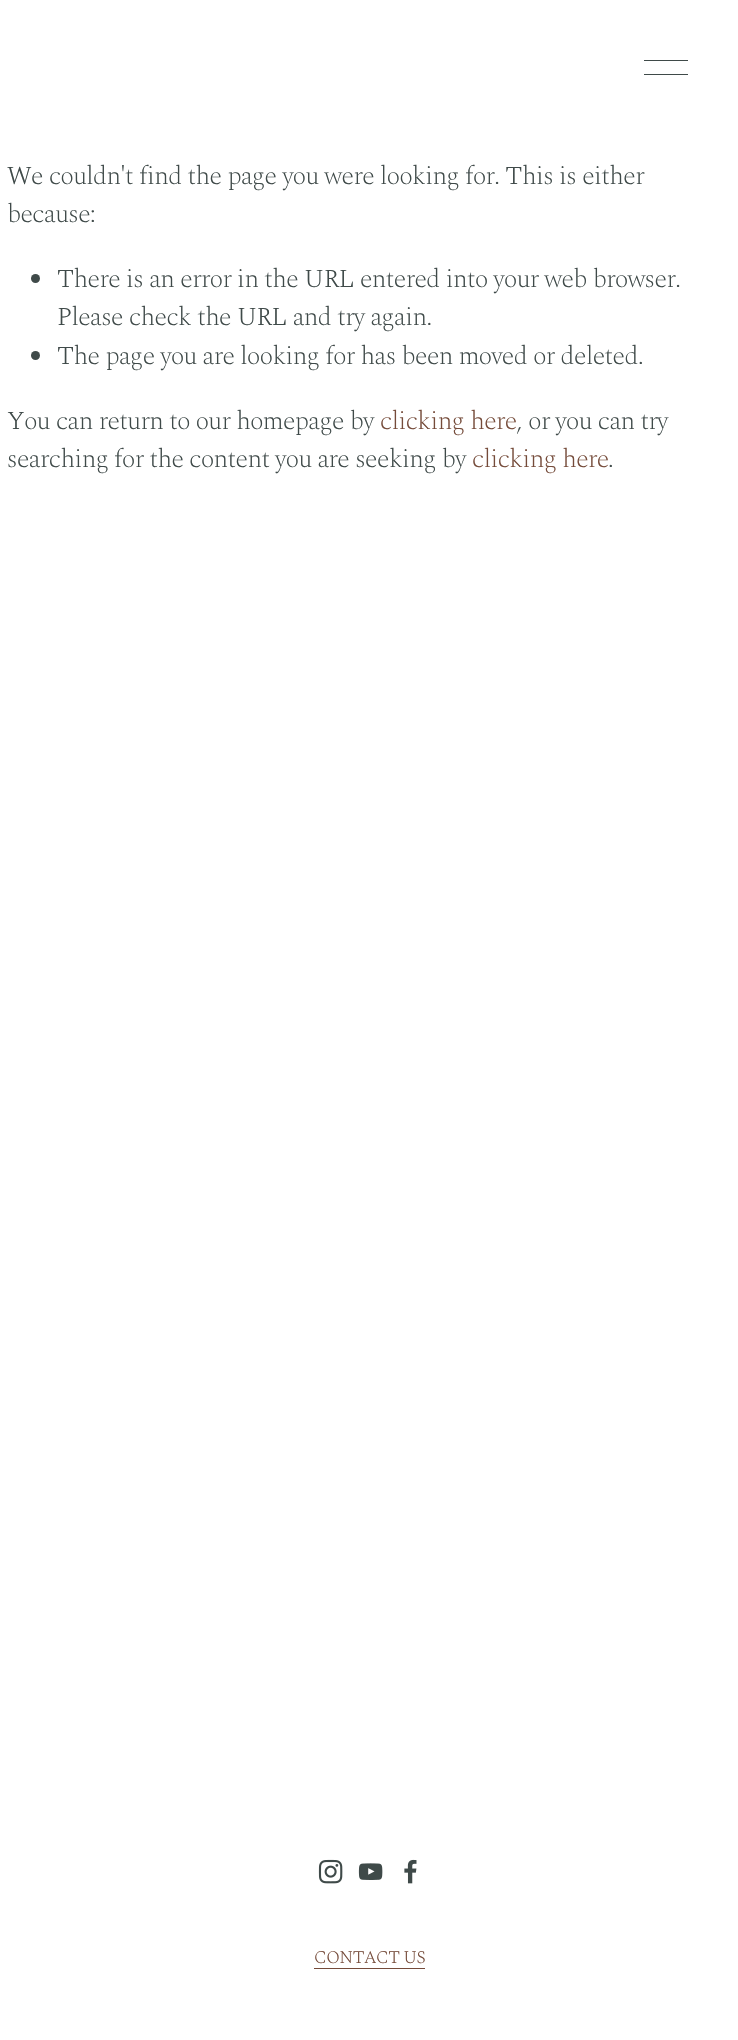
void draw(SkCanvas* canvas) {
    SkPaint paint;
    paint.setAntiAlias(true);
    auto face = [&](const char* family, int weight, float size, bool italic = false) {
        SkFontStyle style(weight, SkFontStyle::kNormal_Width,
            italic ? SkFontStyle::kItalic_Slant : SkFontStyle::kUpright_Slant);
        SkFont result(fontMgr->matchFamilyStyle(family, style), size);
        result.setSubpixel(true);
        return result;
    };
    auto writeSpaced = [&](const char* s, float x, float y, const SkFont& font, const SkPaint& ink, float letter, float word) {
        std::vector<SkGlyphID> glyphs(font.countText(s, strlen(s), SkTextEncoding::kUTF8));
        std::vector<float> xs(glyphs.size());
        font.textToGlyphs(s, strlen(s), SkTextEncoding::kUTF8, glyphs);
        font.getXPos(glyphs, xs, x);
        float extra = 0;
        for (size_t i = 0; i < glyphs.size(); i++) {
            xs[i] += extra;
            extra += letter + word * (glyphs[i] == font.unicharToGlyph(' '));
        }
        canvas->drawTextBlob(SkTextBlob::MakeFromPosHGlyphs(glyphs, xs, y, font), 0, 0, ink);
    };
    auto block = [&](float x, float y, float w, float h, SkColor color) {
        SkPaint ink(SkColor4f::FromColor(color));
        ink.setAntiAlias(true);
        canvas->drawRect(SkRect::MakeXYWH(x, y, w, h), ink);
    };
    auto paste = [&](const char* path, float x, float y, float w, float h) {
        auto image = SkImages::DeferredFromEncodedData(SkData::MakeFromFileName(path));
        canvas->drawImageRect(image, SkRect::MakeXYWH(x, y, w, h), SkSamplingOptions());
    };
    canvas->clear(SK_ColorWHITE);
    block(644, 60, 44, 1, SkColorSetRGB(63, 74, 73));
    block(644, 74, 44, 1, SkColorSetRGB(63, 74, 73));
    auto kFont1 = face("Spectral", 200, 25.8f);
    paint.setColor(SkColorSetRGB(63, 74, 73));
    writeSpaced("We couldn't find the page you were looking for. This is either", 7, 184, kFont1, paint, -0.52f, 0);
    writeSpaced("because:", 7, 222, kFont1, paint, -0.52f, 0);
    canvas->drawCircle(35.5f, 278.5f, 4.5f, paint);
    writeSpaced("There is an error in the URL entered into your web browser.", 57, 287, kFont1, paint, -0.52f, 0);
    writeSpaced("Please check the URL and try again.", 57, 325, kFont1, paint, -0.52f, 0);
    canvas->drawCircle(35.5f, 355.5f, 4.5f, paint);
    writeSpaced("The page you are looking for has been moved or deleted.", 57, 364, kFont1, paint, -0.52f, 0);
    writeSpaced("You can return to our homepage by", 7, 429, kFont1, paint, -0.52f, 0);
    paint.setColor(SkColorSetRGB(117, 75, 58));
    writeSpaced("clicking here", 380, 429, kFont1, paint, -0.52f, 0);
    paint.setColor(SkColorSetRGB(63, 74, 73));
    writeSpaced(", or you can try", 517, 429, kFont1, paint, -0.52f, 0);
    writeSpaced("searching for the content you are seeking by", 7, 467, kFont1, paint, -0.52f, 0);
    paint.setColor(SkColorSetRGB(117, 75, 58));
    writeSpaced("clicking here", 472, 467, kFont1, paint, -0.52f, 0);
    paint.setColor(SkColorSetRGB(63, 74, 73));
    writeSpaced(".", 608, 467, kFont1, paint, -0.52f, 0);
    paste("pic1.png", 318, 1859, 25, 25);
    paste("pic2.png", 358, 1863, 25, 17);
    paste("pic3.png", 404, 1859, 13, 25);
    auto kFont2 = face("Spectral", 200, 17.75f);
    paint.setColor(SkColorSetRGB(117, 75, 58));
    writeSpaced("CONTACT US", 314, 1963, kFont2, paint, -0.52f, 0);
    block(314, 1968, 111, 1, SkColorSetRGB(117, 75, 58));
}
